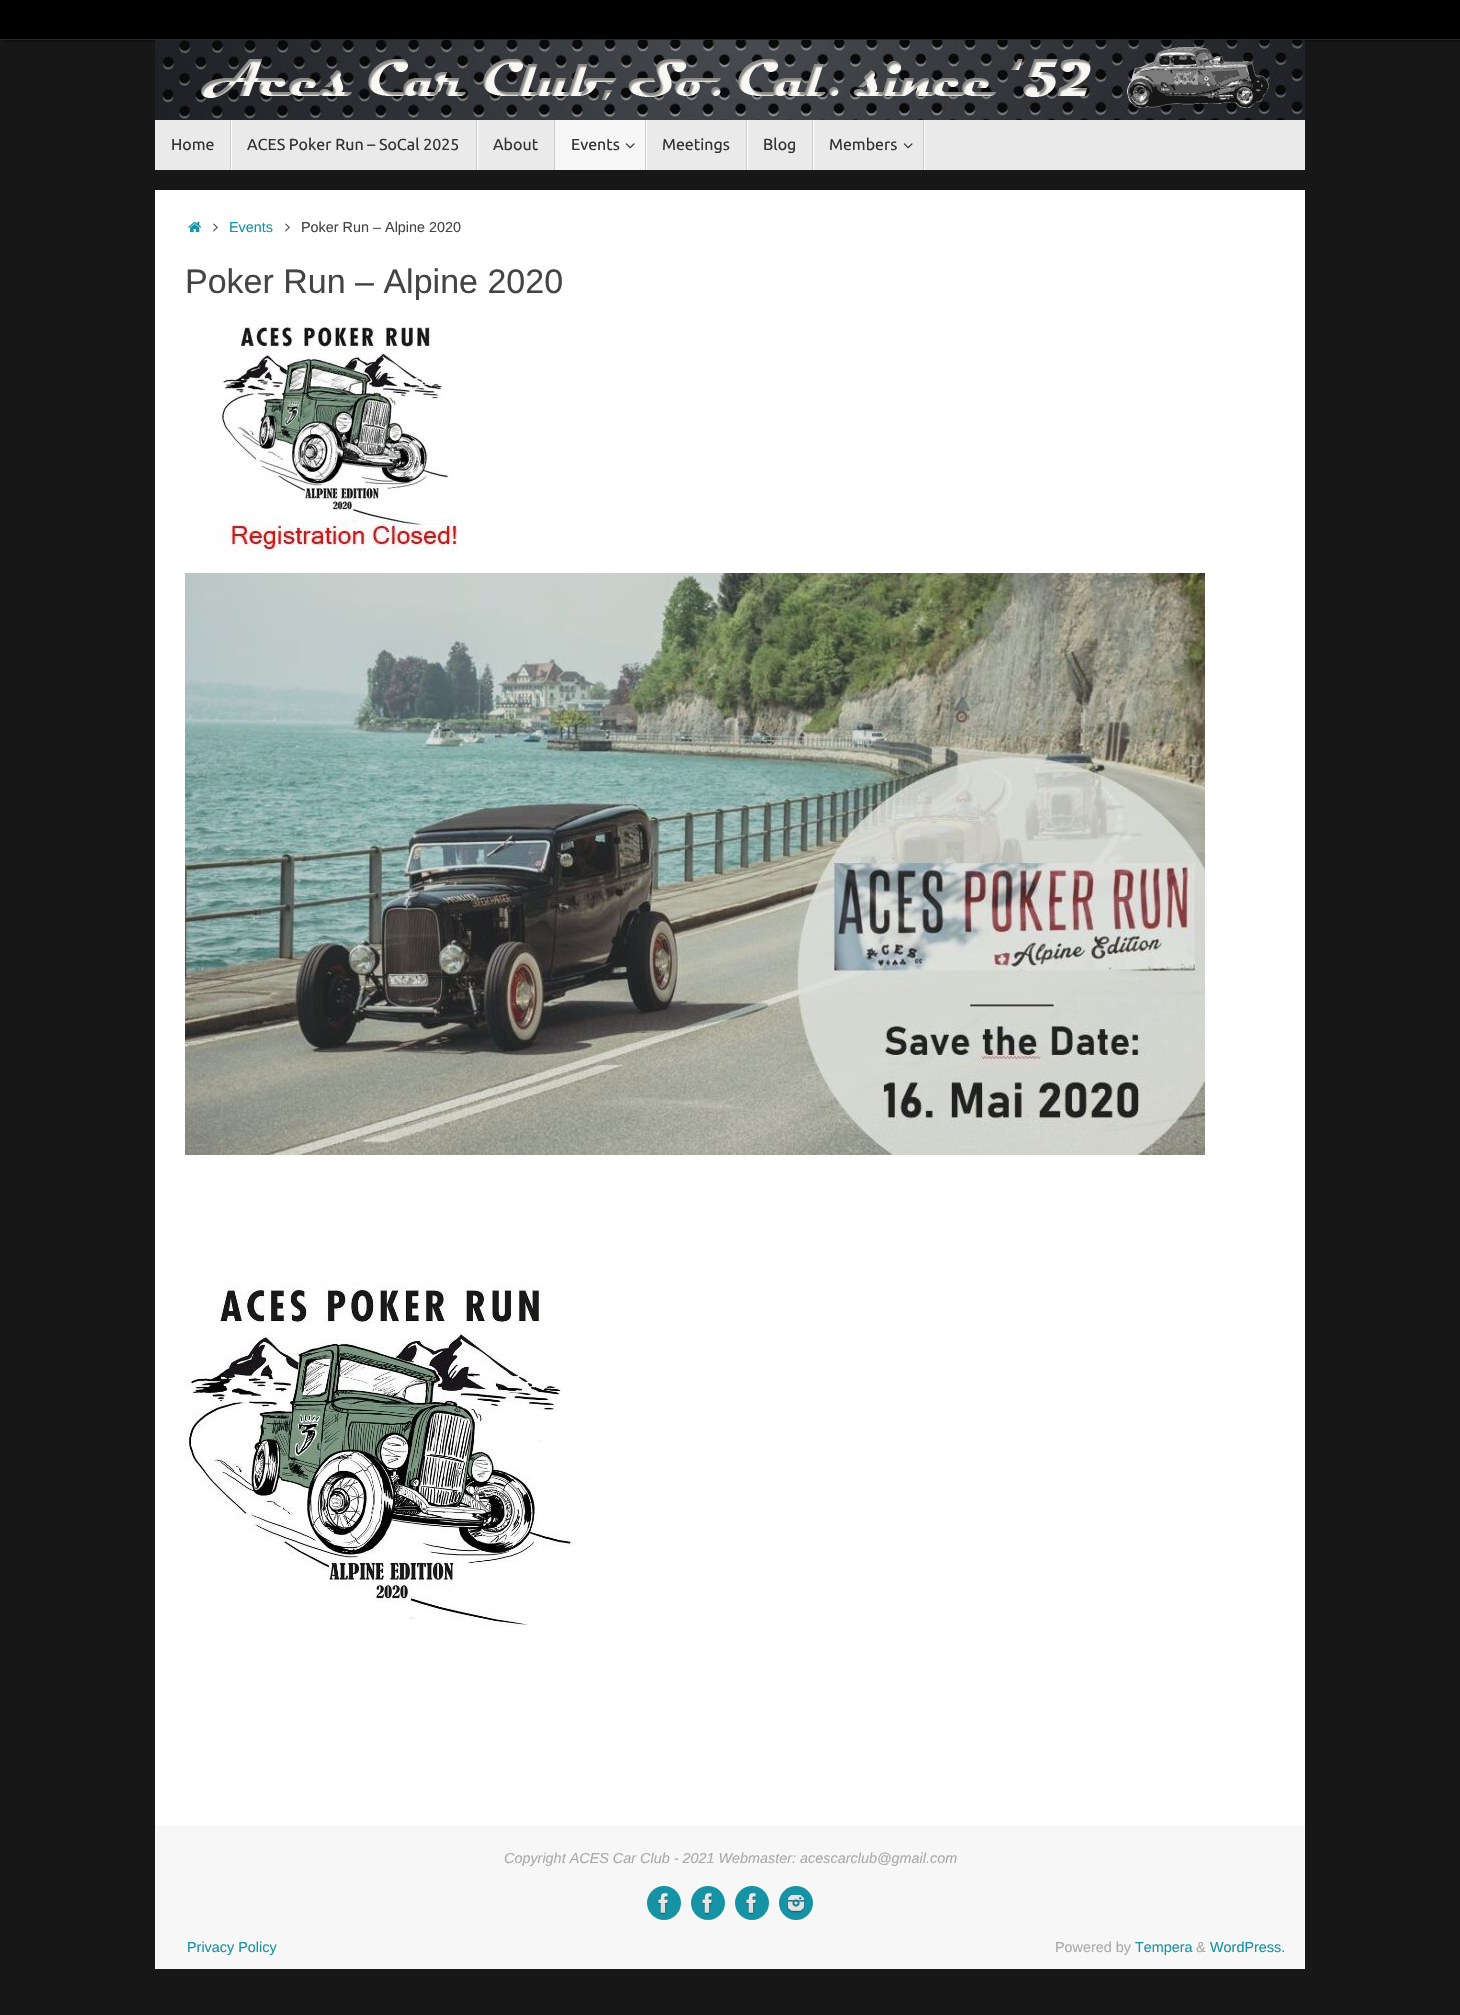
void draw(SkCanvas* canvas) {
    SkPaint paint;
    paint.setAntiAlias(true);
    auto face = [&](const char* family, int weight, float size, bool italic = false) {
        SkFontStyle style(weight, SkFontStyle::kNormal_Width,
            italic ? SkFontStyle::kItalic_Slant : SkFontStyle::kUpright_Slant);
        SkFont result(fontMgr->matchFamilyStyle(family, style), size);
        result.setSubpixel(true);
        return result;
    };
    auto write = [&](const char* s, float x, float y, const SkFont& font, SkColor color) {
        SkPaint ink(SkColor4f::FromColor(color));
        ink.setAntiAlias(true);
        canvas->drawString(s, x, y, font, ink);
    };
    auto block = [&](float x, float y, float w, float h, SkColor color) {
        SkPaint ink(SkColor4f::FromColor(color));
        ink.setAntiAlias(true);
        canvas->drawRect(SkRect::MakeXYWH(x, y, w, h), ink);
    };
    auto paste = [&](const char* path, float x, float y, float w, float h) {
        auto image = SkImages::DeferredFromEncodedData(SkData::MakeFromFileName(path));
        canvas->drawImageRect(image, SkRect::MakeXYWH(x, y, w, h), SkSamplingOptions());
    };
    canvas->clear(SkColorSetRGB(23, 23, 23));
    paint.setColor(SK_ColorBLACK);
    paint.setMaskFilter(SkMaskFilter::MakeBlur(kNormal_SkBlurStyle, 1.5f));
    canvas->drawRect(SkRect::MakeXYWH(3, 0, 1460, 40), paint);
    paint.setMaskFilter(nullptr);
    block(0, 0, 1460, 39, SK_ColorBLACK);
    block(0, 39, 1460, 1, SkColorSetRGB(40, 40, 40));
    paste("pic1.png", 155, 40, 1150, 80);
    block(155, 120, 1150, 50, SkColorSetRGB(234, 234, 234));
    block(231, 120, 1, 50, SK_ColorWHITE);
    block(230, 120, 1, 50, SkColorSetRGB(204, 204, 204));
    auto kFont1 = face("Ubuntu", 400, 16);
    write("Home", 171, 150, kFont1, SkColorSetRGB(51, 51, 51));
    block(477, 120, 1, 50, SK_ColorWHITE);
    block(476, 120, 1, 50, SkColorSetRGB(204, 204, 204));
    write("ACES Poker Run – SoCal 2025", 247, 150, kFont1, SkColorSetRGB(51, 51, 51));
    block(554, 120, 1, 50, SkColorSetRGB(204, 204, 204));
    write("About", 493, 150, kFont1, SkColorSetRGB(51, 51, 51));
    block(555, 120, 90, 50, SkColorSetRGB(247, 247, 247));
    block(646, 120, 1, 50, SK_ColorWHITE);
    block(645, 120, 1, 50, SkColorSetRGB(204, 204, 204));
    write("Events", 571, 150, kFont1, SkColorSetRGB(51, 51, 51));
    paste("pic2.png", 625, 143, 10, 6);
    block(747, 120, 1, 50, SK_ColorWHITE);
    block(746, 120, 1, 50, SkColorSetRGB(204, 204, 204));
    write("Meetings", 662, 150, kFont1, SkColorSetRGB(51, 51, 51));
    block(813, 120, 1, 50, SK_ColorWHITE);
    block(812, 120, 1, 50, SkColorSetRGB(204, 204, 204));
    write("Blog", 763, 150, kFont1, SkColorSetRGB(51, 51, 51));
    block(924, 120, 1, 50, SK_ColorWHITE);
    block(923, 120, 1, 50, SkColorSetRGB(204, 204, 204));
    write("Members", 829, 150, kFont1, SkColorSetRGB(51, 51, 51));
    paste("pic3.png", 903, 143, 10, 6);
    block(155, 190, 1150, 1636, SK_ColorWHITE);
    paste("pic4.png", 188, 221, 14, 12);
    paste("pic5.png", 213, 223, 5, 9);
    auto kFont2 = face("Liberation Sans", 400, 14.4f);
    write("Events", 229, 232, kFont2, SkColorSetRGB(22, 147, 165));
    paste("pic5.png", 285, 223, 5, 9);
    write("Poker Run – Alpine 2020", 301, 232, kFont2, SkColorSetRGB(68, 68, 68));
    auto kFont3 = face("Liberation Sans", 400, 34);
    write("Poker Run – Alpine 2020", 185, 293, kFont3, SkColorSetRGB(68, 68, 68));
    paste("pic6.png", 218, 327, 240, 225);
    paste("pic7.png", 185, 573, 1020, 582);
    paste("pic8.png", 185, 1283, 392, 344);
    block(155, 1826, 1150, 143, SkColorSetRGB(247, 247, 247));
    auto kFont4 = face("Liberation Sans", 400, 14.4f, true);
    write("Copyright ACES Car Club - 2021 Webmaster: acescarclub@gmail.com", 504, 1863, kFont4, SkColorSetRGB(170, 170, 170));
    paint.setColor(SkColorSetRGB(22, 147, 165));
    canvas->drawCircle(664, 1903, 17, paint);
    paste("pic9.png", 657, 1893, 12, 22);
    canvas->drawCircle(708, 1903, 17, paint);
    paste("pic9.png", 701, 1893, 12, 22);
    canvas->drawCircle(752, 1903, 17, paint);
    paste("pic9.png", 745, 1893, 12, 22);
    canvas->drawCircle(796, 1903, 17, paint);
    paste("pic10.png", 787, 1895, 18, 18);
    write("Privacy Policy", 187, 1952, kFont2, SkColorSetRGB(22, 147, 165));
    write("Powered by", 1055, 1952, kFont2, SkColorSetRGB(170, 170, 170));
    write("Tempera", 1135, 1952, kFont2, SkColorSetRGB(22, 147, 165));
    write("&", 1196, 1952, kFont2, SkColorSetRGB(170, 170, 170));
    write("WordPress.", 1210, 1952, kFont2, SkColorSetRGB(22, 147, 165));
}
